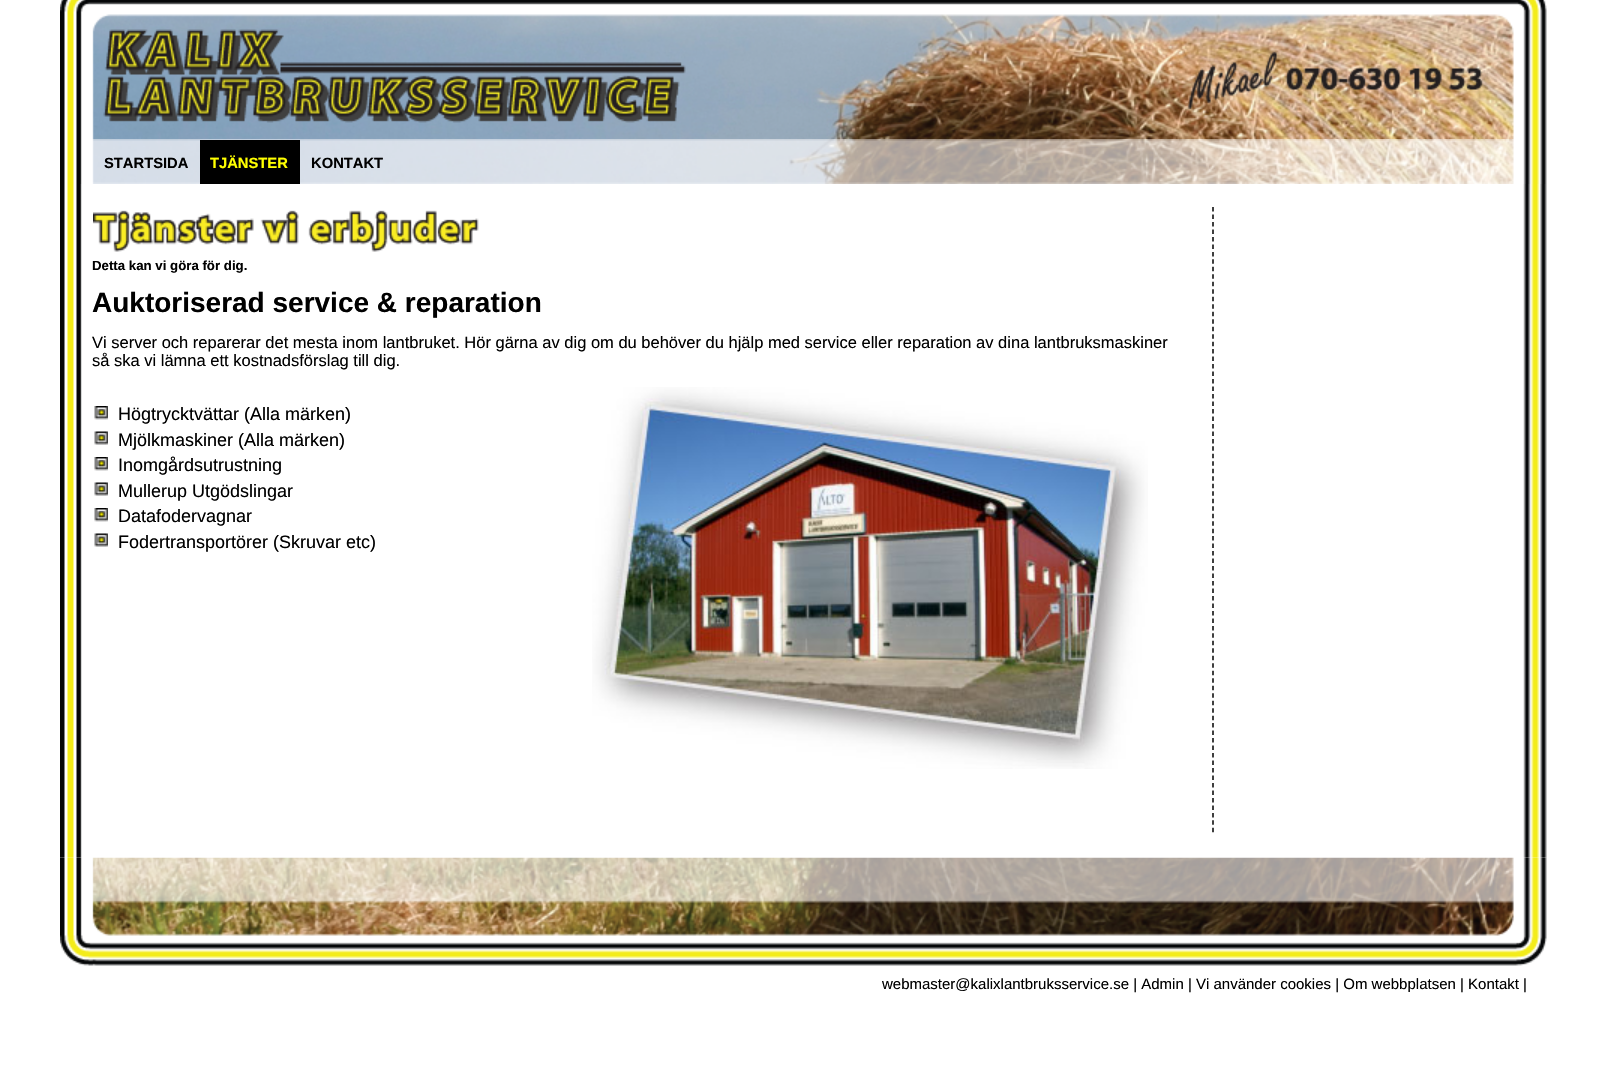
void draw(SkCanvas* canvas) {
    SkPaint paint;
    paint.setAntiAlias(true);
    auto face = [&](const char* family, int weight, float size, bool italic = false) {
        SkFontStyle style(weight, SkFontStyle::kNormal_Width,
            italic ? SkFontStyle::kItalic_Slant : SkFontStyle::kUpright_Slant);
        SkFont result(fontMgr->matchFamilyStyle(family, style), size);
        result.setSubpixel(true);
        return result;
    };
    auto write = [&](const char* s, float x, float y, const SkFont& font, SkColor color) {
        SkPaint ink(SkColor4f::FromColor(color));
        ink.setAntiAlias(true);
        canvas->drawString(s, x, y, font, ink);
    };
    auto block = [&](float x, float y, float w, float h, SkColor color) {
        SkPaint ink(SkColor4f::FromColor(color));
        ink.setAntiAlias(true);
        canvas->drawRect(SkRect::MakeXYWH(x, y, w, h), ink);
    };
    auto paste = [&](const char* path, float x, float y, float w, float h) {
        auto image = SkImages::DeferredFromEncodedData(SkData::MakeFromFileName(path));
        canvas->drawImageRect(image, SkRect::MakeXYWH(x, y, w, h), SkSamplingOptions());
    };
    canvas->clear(SK_ColorWHITE);
    paste("pic1.png", 60, 0, 1487, 139);
    paste("pic2.png", 60, 139, 1487, 45);
    auto kFont1 = face("Liberation Sans", 700, 14.75f);
    write("STARTSIDA", 104, 168, kFont1, SK_ColorBLACK);
    block(200, 140, 100, 44, SK_ColorBLACK);
    write("TJÄNSTER", 210, 168, kFont1, SkColorSetRGB(255, 255, 0));
    write("KONTAKT", 311, 168, kFont1, SK_ColorBLACK);
    paste("pic8.png", 60, 857, 1487, 109);
    paste("pic3.png", 60, 184, 1487, 674);
    paint.setStyle(SkPaint::kStroke_Style);
    paint.setStrokeWidth(1.5f);
    paint.setColor(SK_ColorBLACK);
    paint.setPathEffect(SkDashPathEffect::Make({{4.5f, 2.98f}}, 0));
    canvas->drawPath(SkPathBuilder().moveTo(1213, 207).lineTo(1213, 832.5f).detach(), paint);
    paint.setPathEffect(nullptr);
    paste("pic4.png", 93, 210, 386, 42);
    auto kFont2 = face("Liberation Sans", 700, 13.25f);
    write("Detta kan vi göra för dig.", 92, 270, kFont2, SK_ColorBLACK);
    auto kFont3 = face("Liberation Sans", 700, 28);
    write("Auktoriserad service & reparation", 92, 312, kFont3, SK_ColorBLACK);
    auto kFont4 = face("Liberation Sans", 400, 16.5f);
    write("Vi server och reparerar det mesta inom lantbruket. Hör gärna av dig om du behöver du hjälp med service eller reparation av dina lantbruksmaskiner", 92, 348, kFont4, SK_ColorBLACK);
    write("så ska vi lämna ett kostnadsförslag till dig.", 92, 366, kFont4, SK_ColorBLACK);
    paste("pic5.png", 94, 406, 14, 14);
    auto kFont5 = face("Liberation Sans", 400, 18);
    write("Högtrycktvättar (Alla märken)", 118, 420, kFont5, SK_ColorBLACK);
    paste("pic6.png", 94, 431, 14, 14);
    write("Mjölkmaskiner (Alla märken)", 118, 446, kFont5, SK_ColorBLACK);
    paste("pic5.png", 94, 457, 14, 14);
    write("Inomgårdsutrustning", 118, 471, kFont5, SK_ColorBLACK);
    paste("pic6.png", 94, 482, 14, 14);
    write("Mullerup Utgödslingar", 118, 497, kFont5, SK_ColorBLACK);
    paste("pic5.png", 94, 508, 14, 14);
    write("Datafodervagnar", 118, 522, kFont5, SK_ColorBLACK);
    paste("pic6.png", 94, 533, 14, 14);
    write("Fodertransportörer (Skruvar etc)", 118, 548, kFont5, SK_ColorBLACK);
    paste("pic7.png", 592, 387, 556, 382);
    auto kFont6 = face("Liberation Sans", 400, 15);
    write("webmaster@kalixlantbruksservice.se | Admin | Vi använder cookies | Om webbplatsen | Kontakt |", 882, 989, kFont6, SK_ColorBLACK);
}
